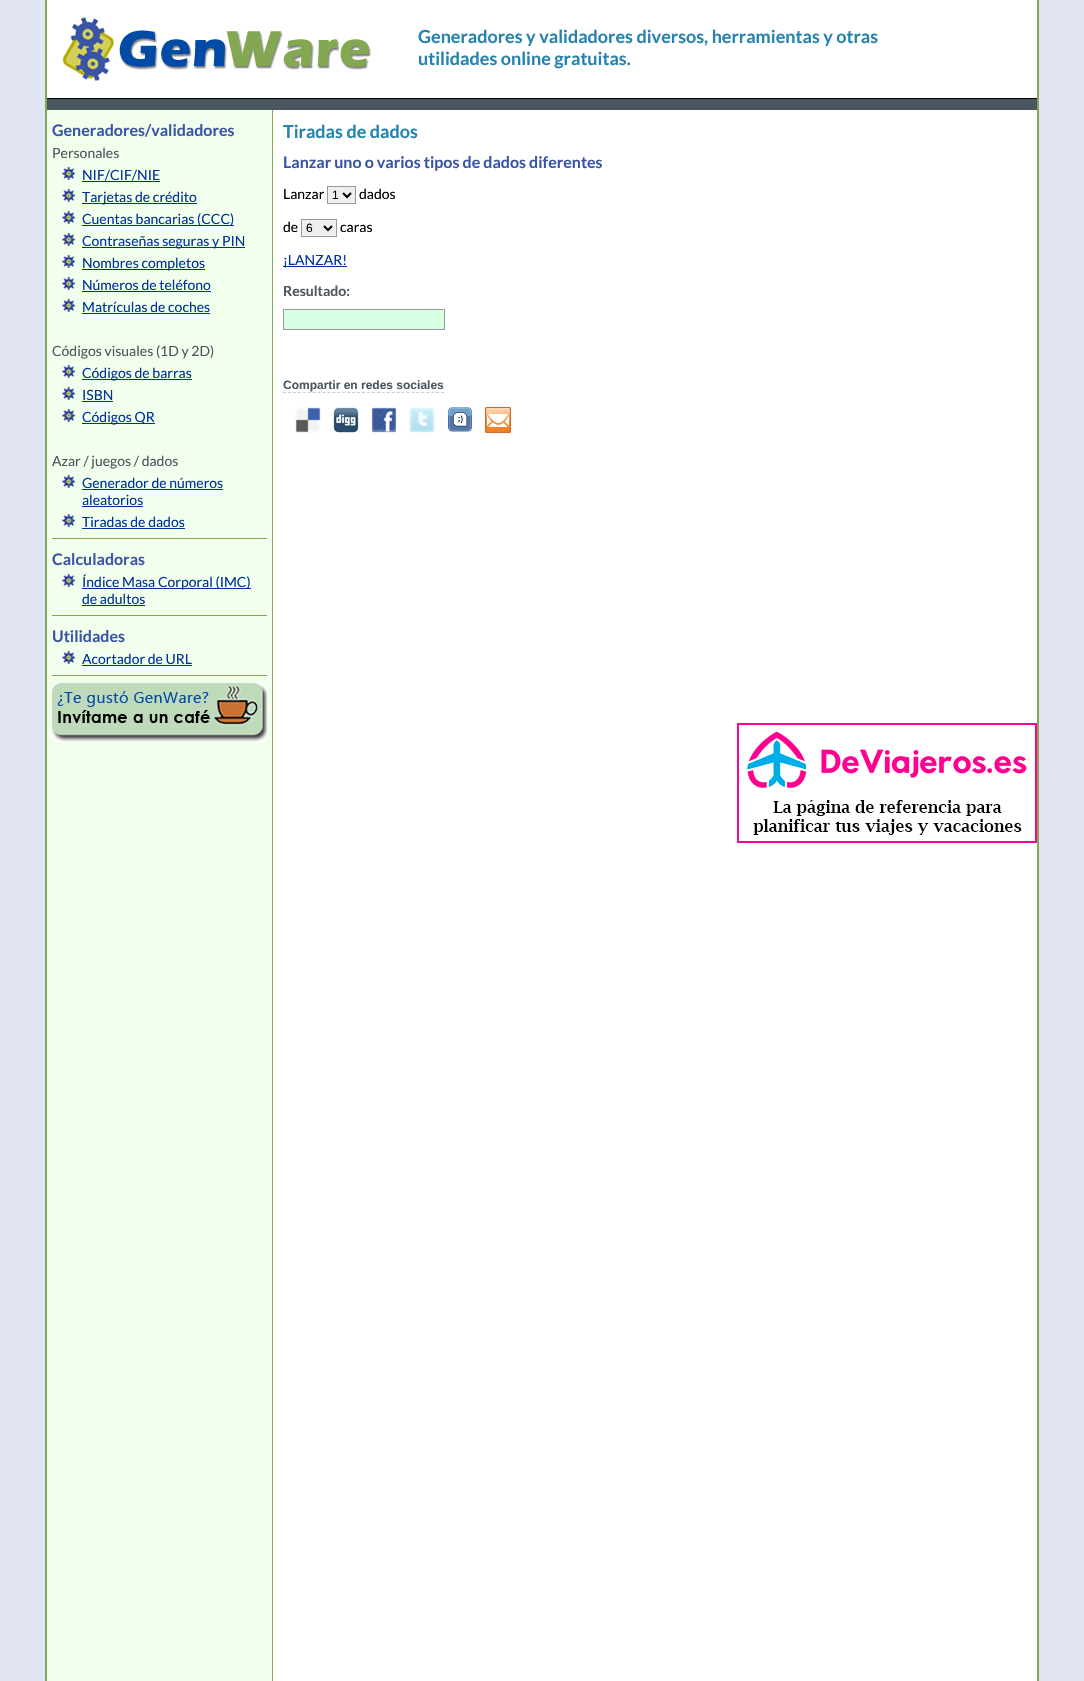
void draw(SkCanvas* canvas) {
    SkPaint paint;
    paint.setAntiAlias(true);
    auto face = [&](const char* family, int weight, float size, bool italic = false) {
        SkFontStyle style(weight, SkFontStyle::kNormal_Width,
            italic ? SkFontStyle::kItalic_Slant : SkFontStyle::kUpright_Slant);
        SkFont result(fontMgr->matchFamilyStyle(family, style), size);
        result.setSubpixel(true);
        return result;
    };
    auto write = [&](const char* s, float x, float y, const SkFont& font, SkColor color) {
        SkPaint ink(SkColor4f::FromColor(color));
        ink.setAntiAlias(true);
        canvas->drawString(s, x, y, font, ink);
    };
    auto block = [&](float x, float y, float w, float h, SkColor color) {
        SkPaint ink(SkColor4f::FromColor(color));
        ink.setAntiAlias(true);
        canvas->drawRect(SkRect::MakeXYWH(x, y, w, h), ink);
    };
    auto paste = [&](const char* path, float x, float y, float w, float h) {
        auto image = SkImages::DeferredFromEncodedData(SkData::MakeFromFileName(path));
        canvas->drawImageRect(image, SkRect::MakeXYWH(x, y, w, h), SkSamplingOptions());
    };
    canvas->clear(SkColorSetRGB(226, 230, 244));
    block(47, 0, 990, 1681, SK_ColorWHITE);
    block(1037, 0, 2, 1681, SkColorSetRGB(132, 168, 81));
    block(45, 0, 2, 1681, SkColorSetRGB(132, 168, 81));
    block(47, 98, 990, 1, SK_ColorBLACK);
    paste("pic1.png", 62, 17, 309, 64);
    auto kFont1 = face("Lato", 700, 18);
    write("Generadores y validadores diversos, herramientas y otras", 418, 43, kFont1, SkColorSetRGB(37, 131, 173));
    write("utilidades online gratuitas.", 418, 65, kFont1, SkColorSetRGB(37, 131, 173));
    block(47, 99, 990, 11, SkColorSetRGB(75, 87, 95));
    block(47, 110, 225, 1571, SkColorSetRGB(242, 255, 236));
    block(272, 110, 1, 1571, SkColorSetRGB(132, 168, 81));
    auto kFont2 = face("Lato", 700, 16);
    write("Generadores/validadores", 52, 136, kFont2, SkColorSetRGB(58, 85, 165));
    auto kFont3 = face("Lato", 400, 14);
    write("Personales", 52, 158, kFont3, SkColorSetRGB(75, 87, 95));
    paste("pic2.png", 62, 167, 13, 13);
    write("NIF/CIF/NIE", 82, 180, kFont3, SkColorSetRGB(0, 51, 153));
    block(82, 181, 78, 1, SkColorSetRGB(0, 51, 153));
    paste("pic2.png", 62, 189, 13, 13);
    block(82, 203, 115, 1, SkColorSetRGB(0, 51, 153));
    write("Tarjetas de crédito", 82, 202, kFont3, SkColorSetRGB(0, 51, 153));
    paste("pic2.png", 62, 211, 13, 13);
    block(82, 225, 152, 1, SkColorSetRGB(0, 51, 153));
    write("Cuentas bancarias (CCC)", 82, 224, kFont3, SkColorSetRGB(0, 51, 153));
    paste("pic2.png", 62, 233, 13, 13);
    block(82, 247, 163, 1, SkColorSetRGB(0, 51, 153));
    write("Contraseñas seguras y PIN", 82, 246, kFont3, SkColorSetRGB(0, 51, 153));
    paste("pic2.png", 62, 255, 13, 13);
    block(82, 269, 123, 1, SkColorSetRGB(0, 51, 153));
    write("Nombres completos", 82, 268, kFont3, SkColorSetRGB(0, 51, 153));
    paste("pic2.png", 62, 277, 13, 13);
    write("Números de teléfono", 82, 290, kFont3, SkColorSetRGB(0, 51, 153));
    block(82, 291, 129, 1, SkColorSetRGB(0, 51, 153));
    paste("pic2.png", 62, 299, 13, 13);
    write("Matrículas de coches", 82, 312, kFont3, SkColorSetRGB(0, 51, 153));
    block(82, 313, 128, 1, SkColorSetRGB(0, 51, 153));
    write("Códigos visuales (1D y 2D)", 52, 356, kFont3, SkColorSetRGB(75, 87, 95));
    paste("pic2.png", 62, 365, 13, 13);
    block(82, 379, 110, 1, SkColorSetRGB(0, 51, 153));
    write("Códigos de barras", 82, 378, kFont3, SkColorSetRGB(0, 51, 153));
    paste("pic2.png", 62, 387, 13, 13);
    write("ISBN", 82, 400, kFont3, SkColorSetRGB(0, 51, 153));
    block(82, 401, 31, 1, SkColorSetRGB(0, 51, 153));
    paste("pic2.png", 62, 409, 13, 13);
    block(82, 423, 73, 1, SkColorSetRGB(0, 51, 153));
    write("Códigos QR", 82, 422, kFont3, SkColorSetRGB(0, 51, 153));
    write("Azar / juegos / dados", 52, 466, kFont3, SkColorSetRGB(75, 87, 95));
    paste("pic2.png", 62, 475, 13, 13);
    write("Generador de números", 82, 488, kFont3, SkColorSetRGB(0, 51, 153));
    block(82, 489, 141, 1, SkColorSetRGB(0, 51, 153));
    write("aleatorios", 82, 505, kFont3, SkColorSetRGB(0, 51, 153));
    block(82, 506, 61, 1, SkColorSetRGB(0, 51, 153));
    paste("pic2.png", 62, 514, 13, 13);
    write("Tiradas de dados", 82, 527, kFont3, SkColorSetRGB(0, 51, 153));
    block(82, 528, 103, 1, SkColorSetRGB(0, 51, 153));
    block(52, 538, 215, 1, SkColorSetRGB(132, 168, 81));
    write("Calculadoras", 52, 565, kFont2, SkColorSetRGB(58, 85, 165));
    paste("pic2.png", 62, 574, 13, 13);
    block(82, 588, 169, 1, SkColorSetRGB(0, 51, 153));
    write("Índice Masa Corporal (IMC)", 82, 587, kFont3, SkColorSetRGB(0, 51, 153));
    write("de adultos", 82, 604, kFont3, SkColorSetRGB(0, 51, 153));
    block(82, 605, 63, 1, SkColorSetRGB(0, 51, 153));
    block(52, 615, 215, 1, SkColorSetRGB(132, 168, 81));
    write("Utilidades", 52, 642, kFont2, SkColorSetRGB(58, 85, 165));
    paste("pic2.png", 62, 651, 13, 13);
    write("Acortador de URL", 82, 664, kFont3, SkColorSetRGB(0, 51, 153));
    block(82, 665, 110, 1, SkColorSetRGB(0, 51, 153));
    block(52, 675, 215, 1, SkColorSetRGB(132, 168, 81));
    paste("pic3.png", 52, 683, 215, 59);
    write("Tiradas de dados", 283, 138, kFont1, SkColorSetRGB(37, 131, 173));
    write("Lanzar uno o varios tipos de dados diferentes", 283, 168, kFont2, SkColorSetRGB(58, 85, 165));
    write("Lanzar", 283, 199, kFont3, SK_ColorBLACK);
    paint.setColor(SkColorSetRGB(239, 239, 239));
    canvas->drawRect(SkRect::MakeXYWH(327.5f, 186.5f, 28, 17), paint);
    paint.setStyle(SkPaint::kStroke_Style);
    paint.setStrokeWidth(1);
    paint.setColor(SkColorSetRGB(153, 153, 153));
    canvas->drawRect(SkRect::MakeXYWH(327.5f, 186.5f, 28, 17), paint);
    paint.setStrokeWidth(2);
    paint.setColor(SK_ColorBLACK);
    canvas->drawPath(SkPathBuilder().moveTo(343, 193).lineTo(347, 197).lineTo(351, 193).detach(), paint);
    auto kFont4 = face("Liberation Sans", 400, 12);
    write("1", 332, 199, kFont4, SK_ColorBLACK);
    write("dados", 359, 199, kFont3, SK_ColorBLACK);
    write("de", 283, 232, kFont3, SK_ColorBLACK);
    paint.setStyle(SkPaint::kFill_Style);
    paint.setColor(SkColorSetRGB(239, 239, 239));
    canvas->drawRect(SkRect::MakeXYWH(301.5f, 219.5f, 35, 17), paint);
    paint.setStyle(SkPaint::kStroke_Style);
    paint.setStrokeWidth(1);
    paint.setColor(SkColorSetRGB(153, 153, 153));
    canvas->drawRect(SkRect::MakeXYWH(301.5f, 219.5f, 35, 17), paint);
    paint.setStrokeWidth(2);
    paint.setColor(SK_ColorBLACK);
    canvas->drawPath(SkPathBuilder().moveTo(324, 226).lineTo(328, 230).lineTo(332, 226).detach(), paint);
    write("6", 306, 232, kFont4, SK_ColorBLACK);
    write("caras", 340, 232, kFont3, SK_ColorBLACK);
    block(283, 266, 64, 1, SkColorSetRGB(0, 51, 153));
    write("¡LANZAR!", 283, 265, kFont3, SkColorSetRGB(0, 51, 153));
    auto kFont5 = face("Lato", 700, 14);
    write("Resultado:", 283, 296, kFont5, SkColorSetRGB(75, 87, 95));
    paint.setStyle(SkPaint::kFill_Style);
    paint.setColor(SkColorSetRGB(215, 255, 225));
    canvas->drawRect(SkRect::MakeXYWH(283.5f, 309.5f, 161, 20), paint);
    paint.setStyle(SkPaint::kStroke_Style);
    paint.setStrokeWidth(1);
    paint.setColor(SkColorSetRGB(153, 153, 153));
    canvas->drawRect(SkRect::MakeXYWH(283.5f, 309.5f, 161, 20), paint);
    auto kFont6 = face("Liberation Sans", 700, 12);
    write("Compartir en redes sociales", 283, 389, kFont6, SkColorSetRGB(75, 87, 95));
    paint.setColor(SkColorSetRGB(204, 204, 204));
    paint.setPathEffect(SkDashPathEffect::Make({{3, 1.94f}}, 0));
    canvas->drawPath(SkPathBuilder().moveTo(283, 392.5f).lineTo(444, 392.5f).detach(), paint);
    paint.setPathEffect(nullptr);
    paste("pic4.png", 295, 407, 26, 26);
    paste("pic5.png", 333, 407, 26, 26);
    paste("pic6.png", 371, 407, 26, 26);
    paste("pic7.png", 409, 407, 26, 26);
    paste("pic8.png", 447, 407, 25, 25);
    paste("pic9.png", 485, 407, 26, 26);
    paste("pic10.png", 737, 723, 300, 120);
}
